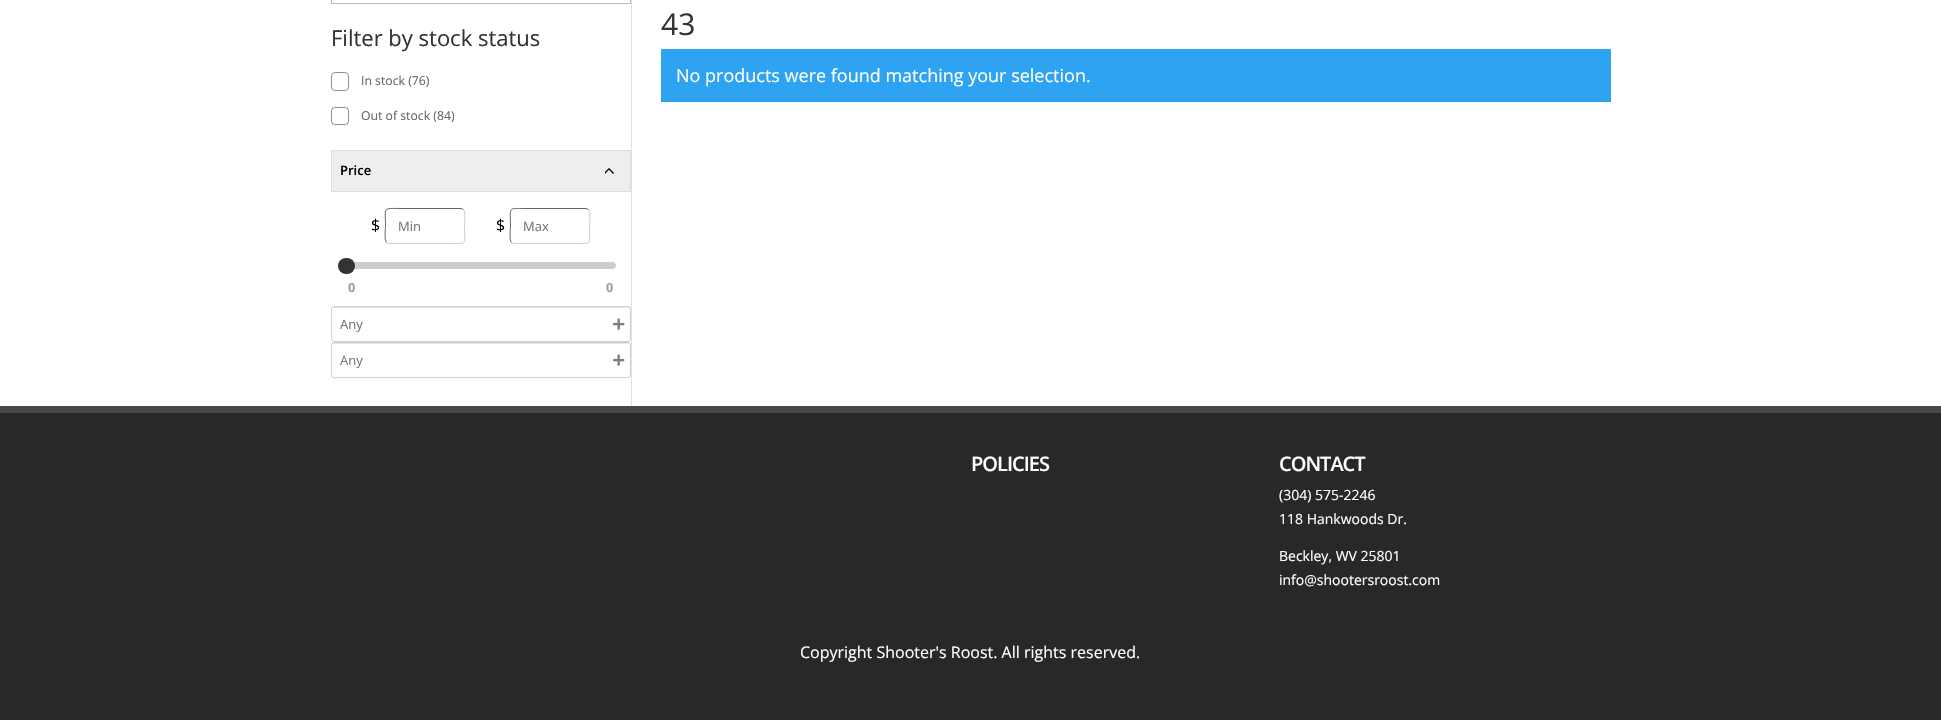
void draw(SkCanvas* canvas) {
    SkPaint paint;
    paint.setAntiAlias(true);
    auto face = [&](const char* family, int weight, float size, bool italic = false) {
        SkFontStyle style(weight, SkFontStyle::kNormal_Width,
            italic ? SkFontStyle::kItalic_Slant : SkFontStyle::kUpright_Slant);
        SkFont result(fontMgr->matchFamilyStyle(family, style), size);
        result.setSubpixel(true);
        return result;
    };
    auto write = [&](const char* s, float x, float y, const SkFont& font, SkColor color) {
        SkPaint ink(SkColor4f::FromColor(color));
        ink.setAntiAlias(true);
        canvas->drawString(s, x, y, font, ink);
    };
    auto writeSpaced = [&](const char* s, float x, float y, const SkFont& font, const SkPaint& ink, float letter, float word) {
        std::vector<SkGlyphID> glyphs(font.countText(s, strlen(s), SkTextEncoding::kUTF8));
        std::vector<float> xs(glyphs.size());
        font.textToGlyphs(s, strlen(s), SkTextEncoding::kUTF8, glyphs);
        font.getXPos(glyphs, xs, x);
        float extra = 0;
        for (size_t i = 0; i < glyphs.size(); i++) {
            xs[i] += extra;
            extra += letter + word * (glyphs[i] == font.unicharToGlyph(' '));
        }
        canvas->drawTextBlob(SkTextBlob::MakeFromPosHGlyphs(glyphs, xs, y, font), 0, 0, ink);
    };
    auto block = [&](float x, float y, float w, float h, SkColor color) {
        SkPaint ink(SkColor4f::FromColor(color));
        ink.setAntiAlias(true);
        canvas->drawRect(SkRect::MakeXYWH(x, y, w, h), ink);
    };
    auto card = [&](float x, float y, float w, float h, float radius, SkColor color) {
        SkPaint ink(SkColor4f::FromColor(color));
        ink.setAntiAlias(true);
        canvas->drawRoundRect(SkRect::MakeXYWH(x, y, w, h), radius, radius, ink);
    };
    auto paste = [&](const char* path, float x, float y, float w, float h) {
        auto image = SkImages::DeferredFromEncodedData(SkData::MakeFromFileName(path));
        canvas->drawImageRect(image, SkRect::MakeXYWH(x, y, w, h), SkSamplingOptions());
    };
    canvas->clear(SK_ColorWHITE);
    block(631, 0, 1, 406, SkColorSetRGB(226, 226, 226));
    paint.setStyle(SkPaint::kStroke_Style);
    paint.setStrokeWidth(1);
    paint.setColor(SkColorSetRGB(187, 187, 187));
    canvas->drawRect(SkRect::MakeXYWH(331.5f, -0.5f, 299, 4), paint);
    auto kFont1 = face("Open Sans", 400, 22);
    write("Filter by stock status", 331, 46, kFont1, SkColorSetRGB(51, 51, 51));
    paint.setColor(SkColorSetRGB(145, 144, 141));
    canvas->drawRoundRect(SkRect::MakeXYWH(331.5f, 72.5f, 17, 18), 3.5f, 3.5f, paint);
    auto kFont2 = face("Open Sans", 400, 12.25f);
    write("In stock (76)", 361, 85, kFont2, SkColorSetRGB(102, 102, 102));
    canvas->drawRoundRect(SkRect::MakeXYWH(331.5f, 107.5f, 17, 17), 3.5f, 3.5f, paint);
    write("Out of stock (84)", 361, 120, kFont2, SkColorSetRGB(102, 102, 102));
    paint.setStyle(SkPaint::kFill_Style);
    paint.setColor(SkColorSetRGB(238, 238, 238));
    canvas->drawRect(SkRect::MakeXYWH(331.5f, 150.5f, 299, 41), paint);
    paint.setStyle(SkPaint::kStroke_Style);
    paint.setColor(SkColorSetRGB(221, 221, 221));
    canvas->drawRect(SkRect::MakeXYWH(331.5f, 150.5f, 299, 41), paint);
    auto kFont3 = face("Open Sans", 600, 13);
    write("Price", 340, 175, kFont3, SK_ColorBLACK);
    paste("pic1.png", 605, 168, 9, 6);
    auto kFont4 = face("Open Sans", 400, 16);
    write("$", 371, 231, kFont4, SK_ColorBLACK);
    paint.setColor(SkColorSetRGB(204, 204, 204));
    canvas->drawPath(SkPathBuilder().moveTo(463.5f, 209.5f).cubicTo(466, 212, 464.5f, 223, 464.5f, 226).cubicTo(464.5f, 245.5f, 468, 243.5f, 449, 243.5f).lineTo(389, 243.5f).lineTo(386.5f, 242.5f).detach(), paint);
    paint.setColor(SkColorSetRGB(102, 102, 102));
    canvas->drawPath(SkPathBuilder().moveTo(386.5f, 242.5f).cubicTo(384, 240, 385.5f, 229, 385.5f, 226).cubicTo(385.5f, 206.5f, 382, 208.5f, 401, 208.5f).lineTo(461, 208.5f).lineTo(463.5f, 209.5f).detach(), paint);
    auto kFont5 = face("Open Sans", 400, 13);
    write("Min", 398, 231, kFont5, SkColorSetRGB(117, 117, 117));
    write("$", 496, 231, kFont4, SK_ColorBLACK);
    paint.setColor(SkColorSetRGB(204, 204, 204));
    canvas->drawPath(SkPathBuilder().moveTo(588.5f, 209.5f).cubicTo(591, 212, 589.5f, 223, 589.5f, 226).cubicTo(589.5f, 245.5f, 593, 243.5f, 574, 243.5f).lineTo(514, 243.5f).lineTo(511.5f, 242.5f).detach(), paint);
    paint.setColor(SkColorSetRGB(102, 102, 102));
    canvas->drawPath(SkPathBuilder().moveTo(511.5f, 242.5f).cubicTo(509, 240, 510.5f, 229, 510.5f, 226).cubicTo(510.5f, 206.5f, 507, 208.5f, 526, 208.5f).lineTo(586, 208.5f).lineTo(588.5f, 209.5f).detach(), paint);
    write("Max", 523, 231, kFont5, SkColorSetRGB(117, 117, 117));
    paint.setStyle(SkPaint::kFill_Style);
    paint.setColor(SkColorSetRGB(204, 204, 204));
    canvas->drawRoundRect(SkRect::MakeXYWH(346.5f, 262.5f, 269, 6), 3, 3, paint);
    paint.setStyle(SkPaint::kStroke_Style);
    canvas->drawRoundRect(SkRect::MakeXYWH(346.5f, 262.5f, 269, 6), 3, 3, paint);
    card(338, 258, 17, 16, 8, SkColorSetRGB(51, 51, 51));
    auto kFont6 = face("Liberation Sans", 700, 13);
    write("0", 348, 292, kFont6, SkColorSetRGB(153, 153, 153));
    write("0", 606, 292, kFont6, SkColorSetRGB(153, 153, 153));
    paint.setStyle(SkPaint::kFill_Style);
    paint.setColor(SkColorSetRGB(230, 230, 230));
    canvas->drawPath(SkPathBuilder().moveTo(334, 308).lineTo(628, 308).cubicTo(629, 308, 630, 309, 630, 310).cubicTo(630, 309, 630, 307, 628, 307).lineTo(333, 307).lineTo(332, 310).cubicTo(332, 309, 333, 308, 334, 308).close().detach(), paint);
    paint.setStyle(SkPaint::kStroke_Style);
    paint.setColor(SkColorSetRGB(208, 208, 208));
    canvas->drawRoundRect(SkRect::MakeXYWH(331.5f, 306.5f, 299, 35), 2.5f, 2.5f, paint);
    write("Any", 340, 329, kFont5, SkColorSetRGB(117, 117, 117));
    paste("pic2.png", 613, 318, 12, 12);
    paint.setStyle(SkPaint::kFill_Style);
    paint.setColor(SkColorSetRGB(230, 230, 230));
    canvas->drawPath(SkPathBuilder().moveTo(334, 344).lineTo(628, 344).cubicTo(629, 344, 630, 345, 630, 346).cubicTo(630, 345, 630, 343, 628, 343).lineTo(333, 343).lineTo(332, 346).cubicTo(332, 345, 333, 344, 334, 344).close().detach(), paint);
    paint.setStyle(SkPaint::kStroke_Style);
    paint.setColor(SkColorSetRGB(208, 208, 208));
    canvas->drawRoundRect(SkRect::MakeXYWH(331.5f, 342.5f, 299, 35), 2.5f, 2.5f, paint);
    write("Any", 340, 365, kFont5, SkColorSetRGB(117, 117, 117));
    paste("pic2.png", 613, 354, 12, 12);
    auto kFont7 = face("Open Sans", 400, 30);
    write("43", 661, 35, kFont7, SkColorSetRGB(51, 51, 51));
    block(661, 49, 950, 53, SkColorSetRGB(46, 163, 242));
    auto kFont8 = face("Open Sans", 400, 18);
    write("No products were found matching your selection.", 676, 82, kFont8, SK_ColorWHITE);
    block(0, 406, 1941, 7, SkColorSetRGB(71, 71, 71));
    block(0, 413, 1941, 307, SkColorSetRGB(40, 40, 40));
    auto kFont9 = face("Open Sans", 600, 20);
    paint.setStyle(SkPaint::kFill_Style);
    paint.setColor(SK_ColorWHITE);
    writeSpaced("POLICIES", 971, 471, kFont9, paint, -1, 0);
    writeSpaced("CONTACT", 1279, 471, kFont9, paint, -1, 0);
    auto kFont10 = face("Open Sans", 400, 14);
    write("(304) 575-2246", 1279, 500, kFont10, SK_ColorWHITE);
    write("118 Hankwoods Dr.", 1279, 524, kFont10, SK_ColorWHITE);
    write("Beckley, WV 25801", 1279, 561, kFont10, SK_ColorWHITE);
    write("info@shootersroost.com", 1279, 585, kFont10, SK_ColorWHITE);
    write("Copyright Shooter's Roost. All rights reserved.", 800, 658, kFont4, SK_ColorWHITE);
}
